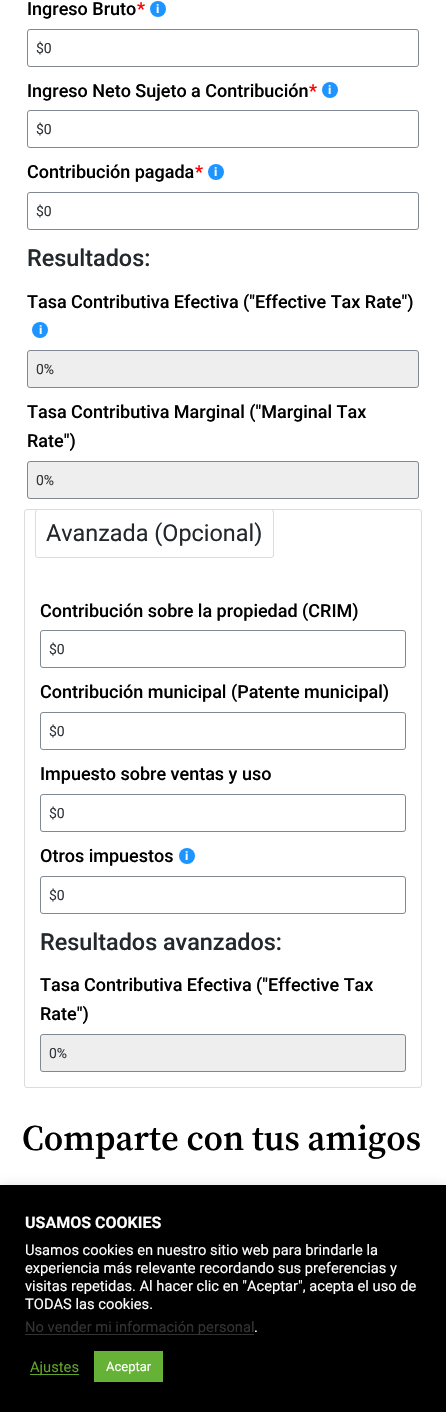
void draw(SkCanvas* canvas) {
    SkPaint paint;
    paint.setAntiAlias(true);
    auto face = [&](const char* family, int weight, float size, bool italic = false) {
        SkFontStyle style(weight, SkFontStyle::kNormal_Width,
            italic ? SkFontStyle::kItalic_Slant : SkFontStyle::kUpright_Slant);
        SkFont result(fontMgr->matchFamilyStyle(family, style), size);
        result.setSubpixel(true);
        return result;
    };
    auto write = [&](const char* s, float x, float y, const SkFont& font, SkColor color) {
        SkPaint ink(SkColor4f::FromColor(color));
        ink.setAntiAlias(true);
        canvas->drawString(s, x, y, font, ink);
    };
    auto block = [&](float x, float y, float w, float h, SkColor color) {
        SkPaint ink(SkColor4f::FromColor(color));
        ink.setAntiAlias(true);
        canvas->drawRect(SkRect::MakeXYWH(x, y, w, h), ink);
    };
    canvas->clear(SK_ColorWHITE);
    auto kFont1 = face("Roboto", 500, 18);
    write("Ingreso Bruto", 27, 15, kFont1, SK_ColorBLACK);
    write("*", 137, 15, kFont1, SkColorSetRGB(255, 0, 0));
    paint.setColor(SkColorSetRGB(29, 148, 255));
    canvas->drawCircle(158, 9, 8, paint);
    auto kFont2 = face("Liberation Sans", 700, 12);
    write("i", 156, 13, kFont2, SK_ColorWHITE);
    paint.setStyle(SkPaint::kStroke_Style);
    paint.setStrokeWidth(1);
    paint.setColor(SkColorSetRGB(126, 137, 147));
    canvas->drawRoundRect(SkRect::MakeXYWH(27.5f, 29.5f, 391, 37), 2.5f, 2.5f, paint);
    auto kFont3 = face("Roboto", 400, 14);
    write("$0", 36, 53, kFont3, SkColorSetRGB(50, 55, 60));
    write("Ingreso Neto Sujeto a Contribución", 27, 97, kFont1, SK_ColorBLACK);
    write("*", 309, 97, kFont1, SkColorSetRGB(255, 0, 0));
    paint.setStyle(SkPaint::kFill_Style);
    paint.setColor(SkColorSetRGB(29, 148, 255));
    canvas->drawCircle(330, 90, 8, paint);
    write("i", 328, 94, kFont2, SK_ColorWHITE);
    paint.setStyle(SkPaint::kStroke_Style);
    paint.setColor(SkColorSetRGB(126, 137, 147));
    canvas->drawRoundRect(SkRect::MakeXYWH(27.5f, 110.5f, 391, 37), 2.5f, 2.5f, paint);
    write("$0", 36, 134, kFont3, SkColorSetRGB(50, 55, 60));
    write("Contribución pagada", 27, 178, kFont1, SK_ColorBLACK);
    write("*", 195, 178, kFont1, SkColorSetRGB(255, 0, 0));
    paint.setStyle(SkPaint::kFill_Style);
    paint.setColor(SkColorSetRGB(29, 148, 255));
    canvas->drawCircle(216, 172, 8, paint);
    write("i", 214, 176, kFont2, SK_ColorWHITE);
    paint.setStyle(SkPaint::kStroke_Style);
    paint.setColor(SkColorSetRGB(126, 137, 147));
    canvas->drawRoundRect(SkRect::MakeXYWH(27.5f, 192.5f, 391, 37), 2.5f, 2.5f, paint);
    write("$0", 36, 216, kFont3, SkColorSetRGB(50, 55, 60));
    auto kFont4 = face("Roboto", 500, 23.4f);
    write("Resultados:", 27, 266, kFont4, SkColorSetRGB(35, 40, 45));
    write("Tasa Contributiva Efectiva (\"Effective Tax Rate\")", 27, 308, kFont1, SK_ColorBLACK);
    paint.setStyle(SkPaint::kFill_Style);
    paint.setColor(SkColorSetRGB(29, 148, 255));
    canvas->drawCircle(40, 330, 8, paint);
    write("i", 39, 334, kFont2, SK_ColorWHITE);
    paint.setColor(SkColorSetRGB(238, 238, 238));
    canvas->drawRoundRect(SkRect::MakeXYWH(27.5f, 350.5f, 391, 37), 2.5f, 2.5f, paint);
    paint.setStyle(SkPaint::kStroke_Style);
    paint.setColor(SkColorSetRGB(126, 137, 147));
    canvas->drawRoundRect(SkRect::MakeXYWH(27.5f, 350.5f, 391, 37), 2.5f, 2.5f, paint);
    write("0%", 36, 374, kFont3, SkColorSetRGB(50, 55, 60));
    write("Tasa Contributiva Marginal (\"Marginal Tax", 27, 418, kFont1, SK_ColorBLACK);
    write("Rate\")", 27, 447, kFont1, SK_ColorBLACK);
    paint.setStyle(SkPaint::kFill_Style);
    paint.setColor(SkColorSetRGB(238, 238, 238));
    canvas->drawRoundRect(SkRect::MakeXYWH(27.5f, 461.5f, 391, 37), 2.5f, 2.5f, paint);
    paint.setStyle(SkPaint::kStroke_Style);
    paint.setColor(SkColorSetRGB(126, 137, 147));
    canvas->drawRoundRect(SkRect::MakeXYWH(27.5f, 461.5f, 391, 37), 2.5f, 2.5f, paint);
    write("0%", 36, 485, kFont3, SkColorSetRGB(50, 55, 60));
    paint.setColor(SkColorSetRGB(220, 220, 220));
    canvas->drawRoundRect(SkRect::MakeXYWH(24.5f, 509.5f, 397, 578), 2.5f, 2.5f, paint);
    canvas->drawRoundRect(SkRect::MakeXYWH(35.5f, 509.5f, 238, 48), 2.5f, 2.5f, paint);
    auto kFont5 = face("Roboto", 400, 23.4f);
    write("Avanzada (Opcional)", 46, 541, kFont5, SkColorSetRGB(35, 40, 45));
    write("Contribución sobre la propiedad (CRIM)", 40, 617, kFont1, SK_ColorBLACK);
    paint.setColor(SkColorSetRGB(126, 137, 147));
    canvas->drawRoundRect(SkRect::MakeXYWH(40.5f, 630.5f, 365, 37), 2.5f, 2.5f, paint);
    write("$0", 49, 654, kFont3, SkColorSetRGB(50, 55, 60));
    write("Contribución municipal (Patente municipal)", 40, 698, kFont1, SK_ColorBLACK);
    canvas->drawRoundRect(SkRect::MakeXYWH(40.5f, 712.5f, 365, 37), 2.5f, 2.5f, paint);
    write("$0", 49, 736, kFont3, SkColorSetRGB(50, 55, 60));
    write("Impuesto sobre ventas y uso", 40, 780, kFont1, SK_ColorBLACK);
    canvas->drawRoundRect(SkRect::MakeXYWH(40.5f, 794.5f, 365, 37), 2.5f, 2.5f, paint);
    write("$0", 49, 818, kFont3, SkColorSetRGB(50, 55, 60));
    write("Otros impuestos", 40, 862, kFont1, SK_ColorBLACK);
    paint.setStyle(SkPaint::kFill_Style);
    paint.setColor(SkColorSetRGB(29, 148, 255));
    canvas->drawCircle(187, 856, 8, paint);
    write("i", 185, 860, kFont2, SK_ColorWHITE);
    paint.setStyle(SkPaint::kStroke_Style);
    paint.setColor(SkColorSetRGB(126, 137, 147));
    canvas->drawRoundRect(SkRect::MakeXYWH(40.5f, 876.5f, 365, 37), 2.5f, 2.5f, paint);
    write("$0", 49, 900, kFont3, SkColorSetRGB(50, 55, 60));
    write("Resultados avanzados:", 40, 950, kFont4, SkColorSetRGB(35, 40, 45));
    write("Tasa Contributiva Efectiva (\"Effective Tax", 40, 991, kFont1, SK_ColorBLACK);
    write("Rate\")", 40, 1020, kFont1, SK_ColorBLACK);
    paint.setStyle(SkPaint::kFill_Style);
    paint.setColor(SkColorSetRGB(238, 238, 238));
    canvas->drawRoundRect(SkRect::MakeXYWH(40.5f, 1034.5f, 365, 37), 2.5f, 2.5f, paint);
    paint.setStyle(SkPaint::kStroke_Style);
    paint.setColor(SkColorSetRGB(126, 137, 147));
    canvas->drawRoundRect(SkRect::MakeXYWH(40.5f, 1034.5f, 365, 37), 2.5f, 2.5f, paint);
    write("0%", 49, 1058, kFont3, SkColorSetRGB(50, 55, 60));
    auto kFont6 = face("Source Serif 4", 600, 36);
    write("Comparte con tus amigos", 22, 1150, kFont6, SK_ColorBLACK);
    paint.setStyle(SkPaint::kFill_Style);
    paint.setColor(SkColorSetARGB(77, 172, 171, 171));
    paint.setMaskFilter(SkMaskFilter::MakeBlur(kNormal_SkBlurStyle, 5));
    canvas->drawRect(SkRect::MakeXYWH(0, 1184, 446, 227), paint);
    paint.setMaskFilter(nullptr);
    block(0, 1185, 446, 227, SK_ColorBLACK);
    auto kFont7 = face("Roboto", 700, 16);
    write("USAMOS COOKIES", 25, 1228, kFont7, SK_ColorWHITE);
    auto kFont8 = face("Roboto", 400, 14.7f);
    write("Usamos cookies en nuestro sitio web para brindarle la", 25, 1255, kFont8, SK_ColorWHITE);
    write("experiencia más relevante recordando sus preferencias y", 25, 1273, kFont8, SK_ColorWHITE);
    write("visitas repetidas. Al hacer clic en \"Aceptar\", acepta el uso de", 25, 1291, kFont8, SK_ColorWHITE);
    write("TODAS las cookies.", 25, 1309, kFont8, SK_ColorWHITE);
    block(25, 1334, 229, 1, SkColorSetRGB(51, 51, 51));
    write("No vender mi información personal", 25, 1332, kFont8, SkColorSetRGB(51, 51, 51));
    write(".", 254, 1332, kFont8, SK_ColorWHITE);
    block(30, 1374, 49, 1, SkColorSetRGB(98, 163, 41));
    write("Ajustes", 30, 1372, kFont8, SkColorSetRGB(98, 163, 41));
    block(94, 1351, 69, 31, SkColorSetRGB(102, 178, 55));
    auto kFont9 = face("Roboto", 400, 13);
    write("Aceptar", 106, 1371, kFont9, SK_ColorWHITE);
}
